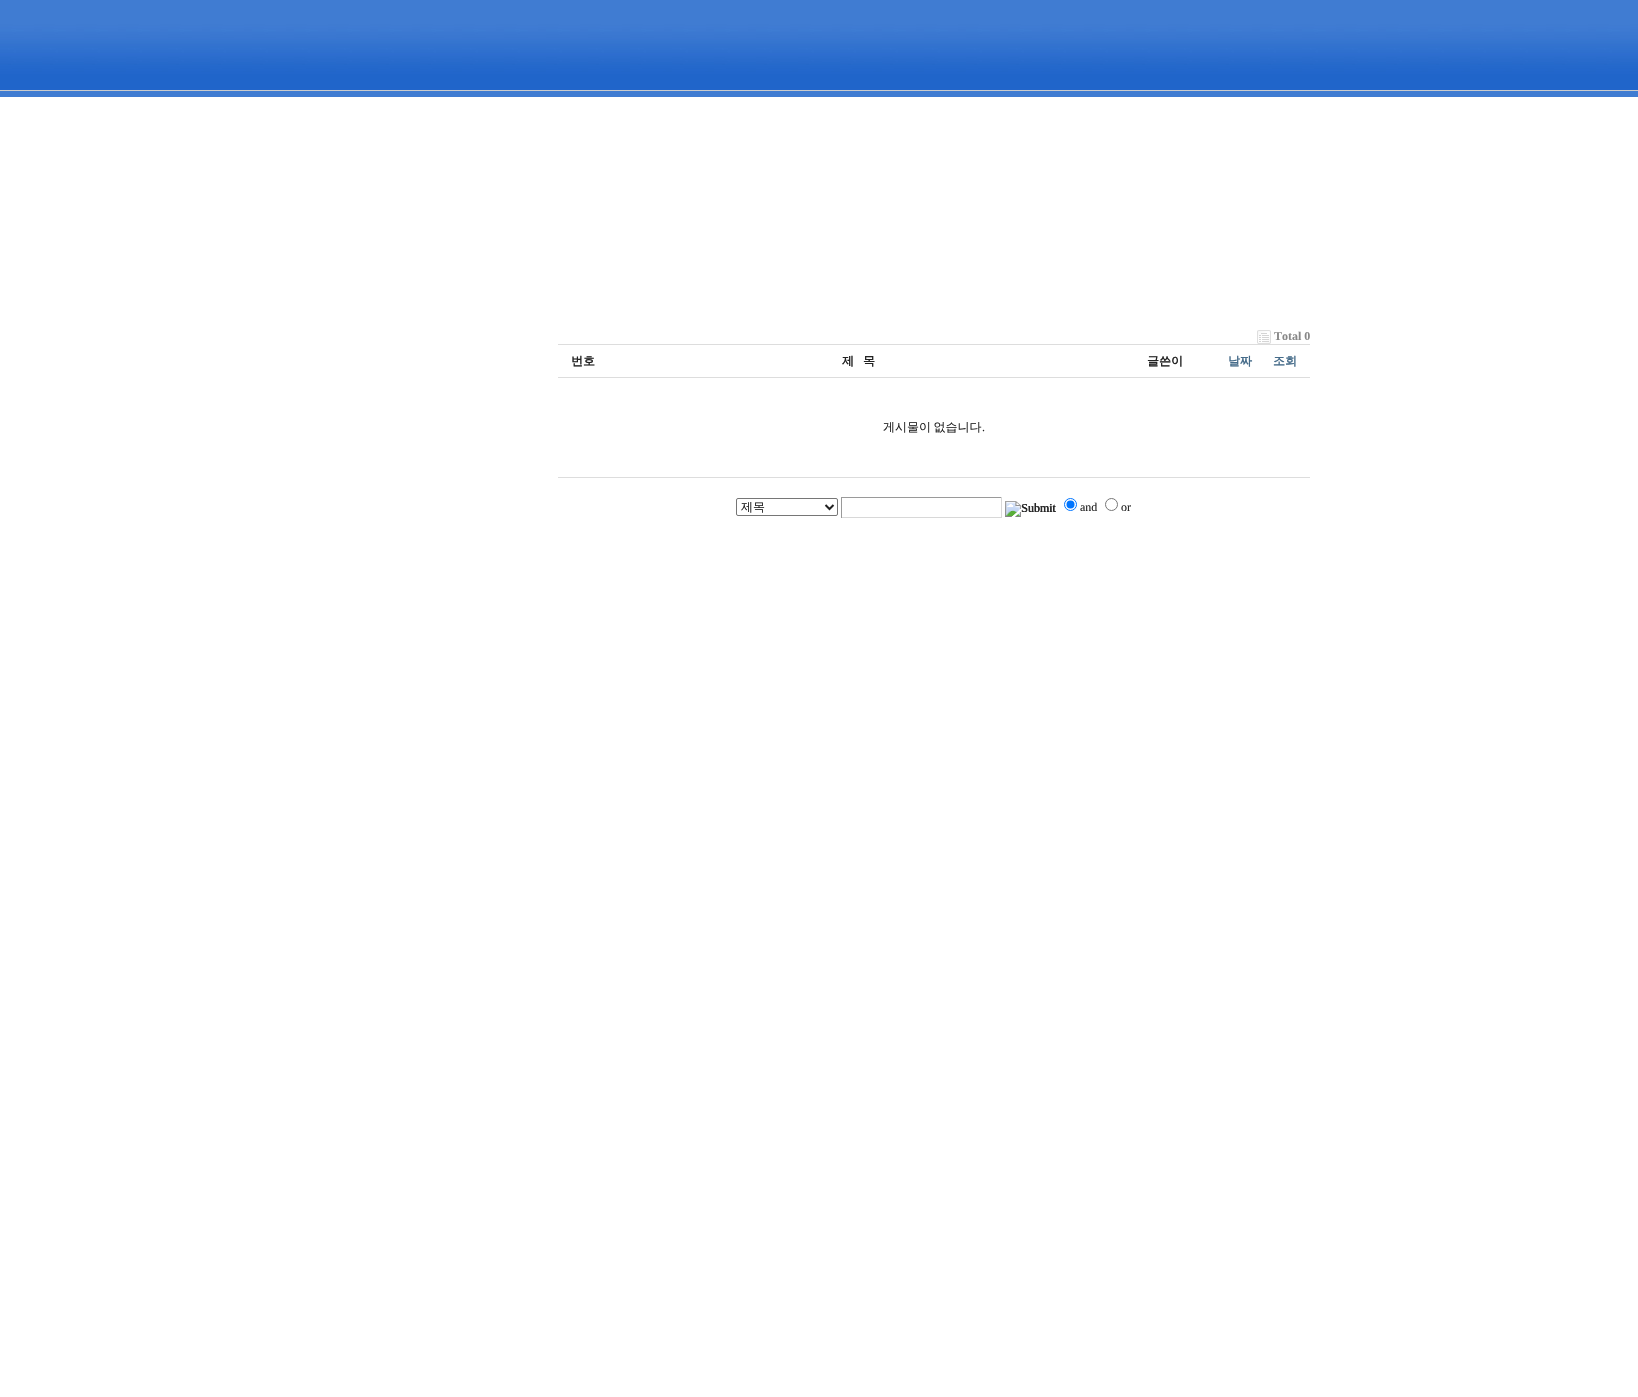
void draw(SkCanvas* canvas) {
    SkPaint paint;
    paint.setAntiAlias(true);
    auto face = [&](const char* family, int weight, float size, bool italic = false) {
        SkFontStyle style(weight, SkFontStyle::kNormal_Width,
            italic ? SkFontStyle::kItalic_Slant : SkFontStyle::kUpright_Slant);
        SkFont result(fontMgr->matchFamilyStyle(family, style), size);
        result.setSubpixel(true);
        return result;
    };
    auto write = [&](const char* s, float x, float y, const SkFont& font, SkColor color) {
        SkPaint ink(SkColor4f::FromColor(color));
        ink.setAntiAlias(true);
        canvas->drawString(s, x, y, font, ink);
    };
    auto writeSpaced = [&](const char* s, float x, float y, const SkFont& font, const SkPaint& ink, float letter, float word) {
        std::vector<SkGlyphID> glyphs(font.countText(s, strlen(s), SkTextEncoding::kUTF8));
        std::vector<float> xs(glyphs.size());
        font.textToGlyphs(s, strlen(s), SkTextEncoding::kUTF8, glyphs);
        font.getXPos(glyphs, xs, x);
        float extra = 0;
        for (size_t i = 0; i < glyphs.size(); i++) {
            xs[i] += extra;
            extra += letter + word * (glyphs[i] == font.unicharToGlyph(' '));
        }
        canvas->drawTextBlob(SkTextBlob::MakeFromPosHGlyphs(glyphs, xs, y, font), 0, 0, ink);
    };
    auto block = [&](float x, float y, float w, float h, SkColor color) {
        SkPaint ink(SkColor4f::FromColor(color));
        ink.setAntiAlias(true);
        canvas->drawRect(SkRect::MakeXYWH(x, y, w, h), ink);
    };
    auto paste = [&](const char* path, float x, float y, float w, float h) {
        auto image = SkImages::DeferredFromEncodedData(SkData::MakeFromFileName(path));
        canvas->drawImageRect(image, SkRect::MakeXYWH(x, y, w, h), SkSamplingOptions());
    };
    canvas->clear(SK_ColorWHITE);
    paste("pic1.png", 0, 0, 1638, 97);
    paste("pic2.png", 1257, 330, 14, 14);
    auto kFont1 = face("Liberation Serif", 700, 12);
    write("Total 0", 1274, 340, kFont1, SkColorSetRGB(136, 136, 136));
    block(558, 344, 752, 1, SkColorSetRGB(221, 221, 221));
    block(558, 377, 752, 1, SkColorSetRGB(221, 221, 221));
    auto kFont2 = face("WenQuanYi Zen Hei", 700, 12);
    write("번호", 571, 365, kFont2, SkColorSetRGB(34, 34, 34));
    write("제", 842, 365, kFont2, SkColorSetRGB(34, 34, 34));
    write("목", 863, 365, kFont2, SkColorSetRGB(34, 34, 34));
    write("글쓴이", 1147, 365, kFont2, SkColorSetRGB(34, 34, 34));
    write("날짜", 1228, 365, kFont2, SkColorSetRGB(70, 108, 138));
    write("조회", 1273, 365, kFont2, SkColorSetRGB(70, 108, 138));
    block(558, 477, 752, 1, SkColorSetRGB(221, 221, 221));
    auto kFont3 = face("WenQuanYi Zen Hei", 500, 12);
    paint.setColor(SkColorSetRGB(34, 34, 34));
    writeSpaced("게시물이 없습니다", 883, 431, kFont3, paint, 0, -1);
    auto kFont4 = face("Liberation Serif", 400, 12);
    write(".", 982, 431, kFont4, SkColorSetRGB(34, 34, 34));
    paint.setStyle(SkPaint::kStroke_Style);
    paint.setStrokeWidth(1);
    paint.setColor(SkColorSetRGB(118, 118, 118));
    canvas->drawRoundRect(SkRect::MakeXYWH(736.5f, 498.5f, 101, 17), 1.5f, 1.5f, paint);
    paint.setStrokeWidth(2);
    paint.setColor(SkColorSetRGB(34, 34, 34));
    canvas->drawPath(SkPathBuilder().moveTo(825.5f, 505).lineTo(829.5f, 509).lineTo(833.5f, 505).detach(), paint);
    write("제목", 741, 511, kFont3, SkColorSetRGB(34, 34, 34));
    block(841, 497, 161, 1, SkColorSetRGB(154, 154, 154));
    block(1001, 497, 1, 21, SkColorSetRGB(216, 216, 216));
    block(841, 517, 161, 1, SkColorSetRGB(216, 216, 216));
    block(841, 497, 1, 21, SkColorSetRGB(154, 154, 154));
    paste("pic3.png", 1005, 501, 51, 16);
    write("Submit", 1021, 512, kFont4, SkColorSetRGB(34, 34, 34));
    paint.setStrokeWidth(1);
    paint.setColor(SkColorSetRGB(0, 117, 255));
    canvas->drawCircle(1070.5f, 504.5f, 6, paint);
    paint.setStyle(SkPaint::kFill_Style);
    canvas->drawCircle(1070.5f, 504.5f, 4, paint);
    write("and", 1080, 511, kFont4, SkColorSetRGB(34, 34, 34));
    paint.setStyle(SkPaint::kStroke_Style);
    paint.setColor(SkColorSetRGB(118, 118, 118));
    canvas->drawCircle(1111.5f, 504.5f, 6, paint);
    write("or", 1121, 511, kFont4, SkColorSetRGB(34, 34, 34));
}
